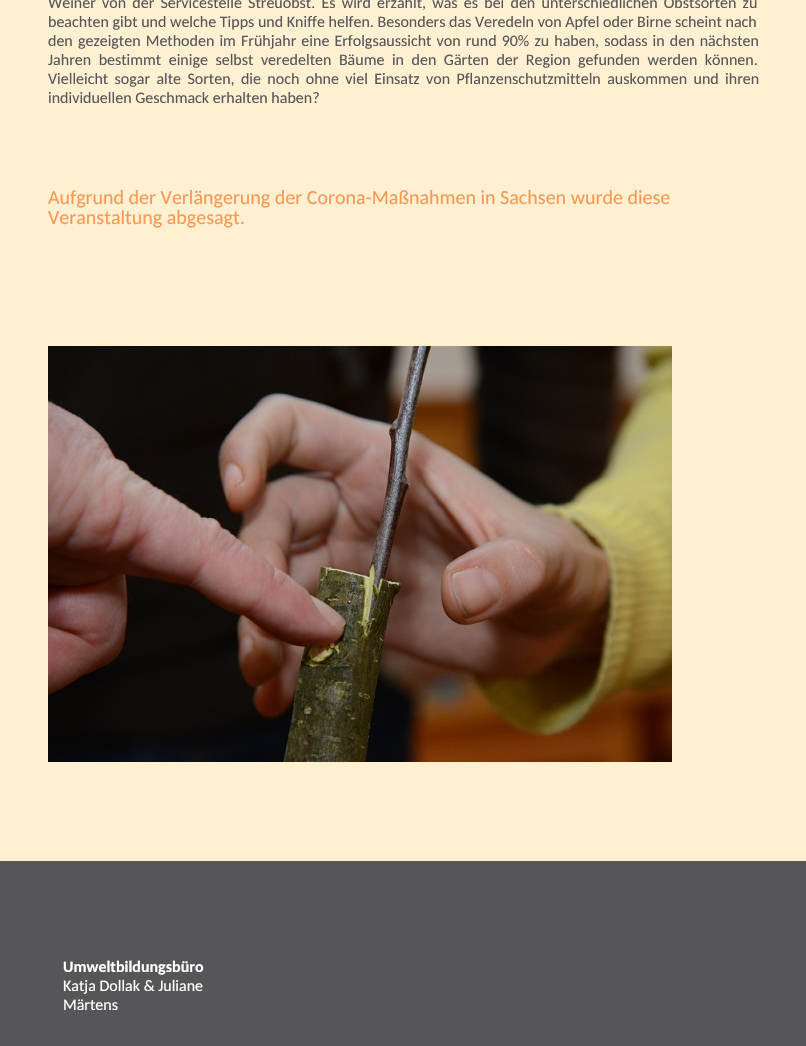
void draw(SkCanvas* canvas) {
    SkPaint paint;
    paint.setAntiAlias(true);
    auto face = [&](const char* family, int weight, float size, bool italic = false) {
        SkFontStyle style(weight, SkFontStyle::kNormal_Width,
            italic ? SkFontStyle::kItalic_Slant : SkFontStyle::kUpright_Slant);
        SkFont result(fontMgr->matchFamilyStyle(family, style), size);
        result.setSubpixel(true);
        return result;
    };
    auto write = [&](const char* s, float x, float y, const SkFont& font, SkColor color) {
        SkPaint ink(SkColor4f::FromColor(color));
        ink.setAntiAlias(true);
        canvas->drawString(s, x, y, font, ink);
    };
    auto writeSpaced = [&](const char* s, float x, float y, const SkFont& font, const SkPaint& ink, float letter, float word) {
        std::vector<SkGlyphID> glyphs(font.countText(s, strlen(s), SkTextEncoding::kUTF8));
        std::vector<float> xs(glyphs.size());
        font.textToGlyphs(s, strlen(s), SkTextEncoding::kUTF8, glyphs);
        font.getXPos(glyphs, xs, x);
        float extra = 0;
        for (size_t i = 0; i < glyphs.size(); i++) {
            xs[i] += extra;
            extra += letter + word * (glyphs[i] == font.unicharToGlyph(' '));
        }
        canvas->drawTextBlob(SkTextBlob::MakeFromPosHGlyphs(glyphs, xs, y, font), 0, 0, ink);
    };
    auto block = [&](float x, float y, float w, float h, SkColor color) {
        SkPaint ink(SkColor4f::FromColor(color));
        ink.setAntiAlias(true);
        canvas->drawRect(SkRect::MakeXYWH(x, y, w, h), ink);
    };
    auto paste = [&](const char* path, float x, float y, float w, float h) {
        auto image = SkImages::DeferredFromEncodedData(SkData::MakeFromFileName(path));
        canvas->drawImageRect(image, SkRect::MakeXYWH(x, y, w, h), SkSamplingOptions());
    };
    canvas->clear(SkColorSetRGB(255, 240, 210));
    auto kFont1 = face("Carlito", 400, 16);
    paint.setColor(SkColorSetRGB(86, 86, 88));
    writeSpaced("Weiner von der Servicestelle Streuobst. Es wird erzählt, was es bei den unterschiedlichen Obstsorten zu", 48, 8, kFont1, paint, 0, 2.6f);
    write("beachten gibt und welche Tipps und Kniffe helfen. Besonders das Veredeln von Apfel oder Birne scheint nach", 48, 27, kFont1, SkColorSetRGB(86, 86, 88));
    writeSpaced("den gezeigten Methoden im Frühjahr eine Erfolgsaussicht von rund 90% zu haben, sodass in den nächsten", 48, 46, kFont1, paint, 0, 1.5f);
    writeSpaced("Jahren bestimmt einige selbst veredelten Bäume in den Gärten der Region gefunden werden können.", 48, 65, kFont1, paint, 0, 3.9f);
    writeSpaced("Vielleicht sogar alte Sorten, die noch ohne viel Einsatz von Pflanzenschutzmitteln auskommen und ihren", 48, 84, kFont1, paint, 0, 2.75f);
    write("individuellen Geschmack erhalten haben?", 48, 103, kFont1, SkColorSetRGB(86, 86, 88));
    auto kFont2 = face("Carlito", 400, 20);
    write("Aufgrund der Verlängerung der Corona-Maßnahmen in Sachsen wurde diese", 48, 204, kFont2, SkColorSetRGB(251, 153, 83));
    write("Veranstaltung abgesagt.", 48, 224, kFont2, SkColorSetRGB(251, 153, 83));
    paste("pic1.png", 48, 346, 624, 416);
    block(0, 861, 806, 185, SkColorSetRGB(86, 86, 88));
    auto kFont3 = face("Carlito", 700, 16);
    write("Umweltbildungsbüro", 63, 972, kFont3, SK_ColorWHITE);
    write("Katja Dollak & Juliane", 63, 991, kFont1, SK_ColorWHITE);
    write("Märtens", 63, 1010, kFont1, SK_ColorWHITE);
}
